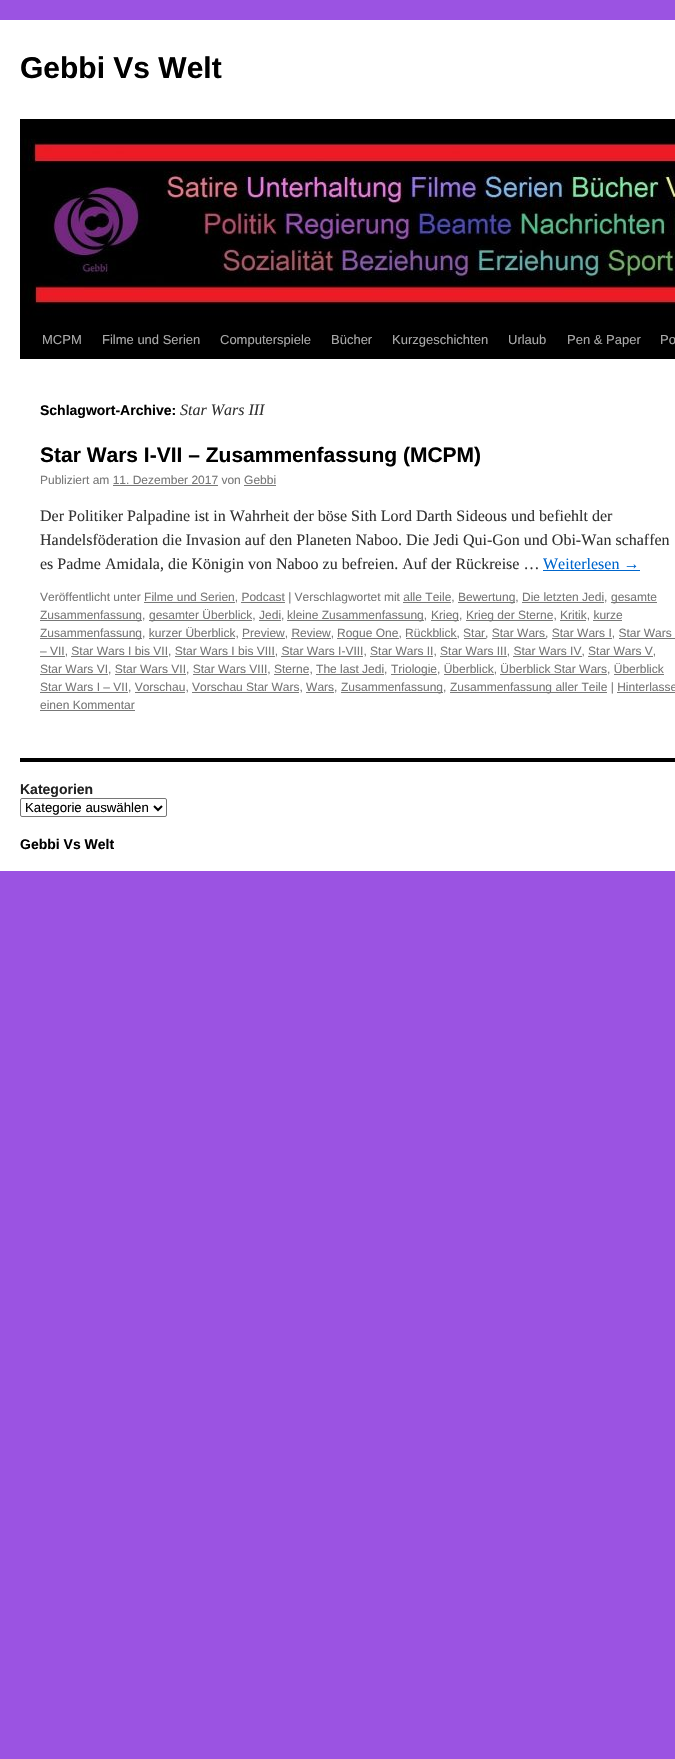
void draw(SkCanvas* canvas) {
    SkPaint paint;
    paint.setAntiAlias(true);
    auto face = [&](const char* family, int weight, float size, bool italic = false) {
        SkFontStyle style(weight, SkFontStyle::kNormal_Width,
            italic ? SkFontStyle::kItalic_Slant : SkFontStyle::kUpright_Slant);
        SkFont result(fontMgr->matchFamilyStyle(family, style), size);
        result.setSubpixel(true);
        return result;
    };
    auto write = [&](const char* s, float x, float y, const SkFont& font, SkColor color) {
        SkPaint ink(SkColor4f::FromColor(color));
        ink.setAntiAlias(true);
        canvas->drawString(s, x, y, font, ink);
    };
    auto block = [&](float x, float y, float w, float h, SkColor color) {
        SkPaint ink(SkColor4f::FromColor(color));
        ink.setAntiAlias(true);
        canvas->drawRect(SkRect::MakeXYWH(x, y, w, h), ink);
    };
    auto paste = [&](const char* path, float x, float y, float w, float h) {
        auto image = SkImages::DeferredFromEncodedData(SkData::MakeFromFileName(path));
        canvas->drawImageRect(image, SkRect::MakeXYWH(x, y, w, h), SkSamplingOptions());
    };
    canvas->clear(SkColorSetRGB(155, 83, 226));
    block(0, 20, 675, 851, SK_ColorWHITE);
    auto kFont1 = face("Liberation Sans", 700, 30);
    write("Gebbi Vs Welt", 20, 78, kFont1, SK_ColorBLACK);
    block(20, 119, 655, 4, SK_ColorBLACK);
    block(20, 320, 655, 39, SK_ColorBLACK);
    paste("pic1.png", 20, 123, 655, 197);
    auto kFont2 = face("Liberation Sans", 400, 13);
    write("MCPM", 42, 344, kFont2, SkColorSetRGB(170, 170, 170));
    write("Filme und Serien", 102, 344, kFont2, SkColorSetRGB(170, 170, 170));
    write("Computerspiele", 220, 344, kFont2, SkColorSetRGB(170, 170, 170));
    write("Bücher", 331, 344, kFont2, SkColorSetRGB(170, 170, 170));
    write("Kurzgeschichten", 392, 344, kFont2, SkColorSetRGB(170, 170, 170));
    write("Urlaub", 508, 344, kFont2, SkColorSetRGB(170, 170, 170));
    write("Pen & Paper", 567, 344, kFont2, SkColorSetRGB(170, 170, 170));
    write("Po", 660, 344, kFont2, SkColorSetRGB(170, 170, 170));
    auto kFont3 = face("Liberation Sans", 700, 14);
    write("Schlagwort-Archive:", 40, 415, kFont3, SK_ColorBLACK);
    auto kFont4 = face("Liberation Serif", 400, 16, true);
    write("Star Wars III", 180, 415, kFont4, SkColorSetRGB(51, 51, 51));
    auto kFont5 = face("Liberation Sans", 700, 21);
    write("Star Wars I-VII – Zusammenfassung (MCPM)", 40, 462, kFont5, SK_ColorBLACK);
    auto kFont6 = face("Liberation Sans", 400, 12);
    write("Publiziert am 11. Dezember 2017 von Gebbi", 40, 484, kFont6, SkColorSetRGB(119, 119, 119));
    block(113, 485, 105, 1, SkColorSetRGB(119, 119, 119));
    block(244, 485, 32, 1, SkColorSetRGB(119, 119, 119));
    auto kFont7 = face("Liberation Serif", 400, 16);
    write("Der Politiker Palpadine ist in Wahrheit der böse Sith Lord Darth Sideous und befiehlt der", 40, 521, kFont7, SkColorSetRGB(51, 51, 51));
    write("Handelsföderation die Invasion auf den Planeten Naboo. Die Jedi Qui-Gon und Obi-Wan schaffen", 40, 545, kFont7, SkColorSetRGB(51, 51, 51));
    write("es Padme Amidala, die Königin von Naboo zu befreien. Auf der Rückreise …", 40, 569, kFont7, SkColorSetRGB(51, 51, 51));
    write("Weiterlesen →", 543, 569, kFont7, SkColorSetRGB(0, 102, 204));
    block(543, 570, 97, 1, SkColorSetRGB(0, 102, 204));
    write("Veröffentlicht unter Filme und Serien, Podcast | Verschlagwortet mit alle Teile,", 40, 601, kFont6, SkColorSetRGB(119, 119, 119));
    block(144, 602, 91, 1, SkColorSetRGB(119, 119, 119));
    block(241, 602, 44, 1, SkColorSetRGB(119, 119, 119));
    block(458, 602, 57, 1, SkColorSetRGB(119, 119, 119));
    write("Bewertung, Die letzten Jedi,", 458, 601, kFont6, SkColorSetRGB(119, 119, 119));
    block(403, 602, 48, 1, SkColorSetRGB(119, 119, 119));
    block(522, 602, 82, 1, SkColorSetRGB(119, 119, 119));
    block(611, 602, 46, 1, SkColorSetRGB(119, 119, 119));
    write("gesamte", 611, 601, kFont6, SkColorSetRGB(119, 119, 119));
    block(40, 620, 102, 1, SkColorSetRGB(119, 119, 119));
    write("Zusammenfassung,", 40, 619, kFont6, SkColorSetRGB(119, 119, 119));
    block(149, 620, 103, 1, SkColorSetRGB(119, 119, 119));
    write("gesamter Überblick, Jedi,", 149, 619, kFont6, SkColorSetRGB(119, 119, 119));
    block(259, 620, 22, 1, SkColorSetRGB(119, 119, 119));
    block(287, 620, 137, 1, SkColorSetRGB(119, 119, 119));
    write("kleine Zusammenfassung,", 287, 619, kFont6, SkColorSetRGB(119, 119, 119));
    block(431, 620, 28, 1, SkColorSetRGB(119, 119, 119));
    write("Krieg,", 431, 619, kFont6, SkColorSetRGB(119, 119, 119));
    block(466, 620, 87, 1, SkColorSetRGB(119, 119, 119));
    write("Krieg der Sterne, Kritik, kurze", 466, 619, kFont6, SkColorSetRGB(119, 119, 119));
    block(560, 620, 26, 1, SkColorSetRGB(119, 119, 119));
    block(593, 620, 29, 1, SkColorSetRGB(119, 119, 119));
    block(40, 638, 102, 1, SkColorSetRGB(119, 119, 119));
    write("Zusammenfassung, kurzer Überblick, Preview, Review,", 40, 637, kFont6, SkColorSetRGB(119, 119, 119));
    block(149, 638, 86, 1, SkColorSetRGB(119, 119, 119));
    block(242, 638, 43, 1, SkColorSetRGB(119, 119, 119));
    block(291, 638, 40, 1, SkColorSetRGB(119, 119, 119));
    block(337, 638, 62, 1, SkColorSetRGB(119, 119, 119));
    write("Rogue One, Rückblick, Star, Star Wars, Star Wars I, Star Wars", 337, 637, kFont6, SkColorSetRGB(119, 119, 119));
    block(406, 638, 51, 1, SkColorSetRGB(119, 119, 119));
    block(464, 638, 22, 1, SkColorSetRGB(119, 119, 119));
    block(492, 638, 54, 1, SkColorSetRGB(119, 119, 119));
    block(552, 638, 60, 1, SkColorSetRGB(119, 119, 119));
    block(619, 638, 56, 1, SkColorSetRGB(119, 119, 119));
    block(40, 656, 25, 1, SkColorSetRGB(119, 119, 119));
    write("– VII, Star Wars I bis VII, Star Wars I bis VIII, Star Wars I-VIII, Star Wars II, Star Wars III, Star Wars IV, Star Wars V,", 40, 655, kFont6, SkColorSetRGB(119, 119, 119));
    block(71, 656, 97, 1, SkColorSetRGB(119, 119, 119));
    block(175, 656, 100, 1, SkColorSetRGB(119, 119, 119));
    block(281, 656, 82, 1, SkColorSetRGB(119, 119, 119));
    block(370, 656, 63, 1, SkColorSetRGB(119, 119, 119));
    block(440, 656, 67, 1, SkColorSetRGB(119, 119, 119));
    block(513, 656, 69, 1, SkColorSetRGB(119, 119, 119));
    block(588, 656, 65, 1, SkColorSetRGB(119, 119, 119));
    block(40, 674, 68, 1, SkColorSetRGB(119, 119, 119));
    write("Star Wars VI, Star Wars VII, Star Wars VIII, Sterne, The last Jedi,", 40, 673, kFont6, SkColorSetRGB(119, 119, 119));
    block(115, 674, 71, 1, SkColorSetRGB(119, 119, 119));
    block(193, 674, 74, 1, SkColorSetRGB(119, 119, 119));
    block(274, 674, 35, 1, SkColorSetRGB(119, 119, 119));
    block(316, 674, 68, 1, SkColorSetRGB(119, 119, 119));
    block(391, 674, 46, 1, SkColorSetRGB(119, 119, 119));
    write("Triologie, Überblick, Überblick Star Wars, Überblick", 391, 673, kFont6, SkColorSetRGB(119, 119, 119));
    block(444, 674, 50, 1, SkColorSetRGB(119, 119, 119));
    block(500, 674, 107, 1, SkColorSetRGB(119, 119, 119));
    block(614, 674, 50, 1, SkColorSetRGB(119, 119, 119));
    block(40, 692, 88, 1, SkColorSetRGB(119, 119, 119));
    write("Star Wars I – VII, Vorschau, Vorschau Star Wars, Wars,", 40, 691, kFont6, SkColorSetRGB(119, 119, 119));
    block(135, 692, 50, 1, SkColorSetRGB(119, 119, 119));
    block(192, 692, 107, 1, SkColorSetRGB(119, 119, 119));
    block(306, 692, 28, 1, SkColorSetRGB(119, 119, 119));
    block(341, 692, 102, 1, SkColorSetRGB(119, 119, 119));
    write("Zusammenfassung,", 341, 691, kFont6, SkColorSetRGB(119, 119, 119));
    block(450, 692, 157, 1, SkColorSetRGB(119, 119, 119));
    write("Zusammenfassung aller Teile | Hinterlasse", 450, 691, kFont6, SkColorSetRGB(119, 119, 119));
    write("einen Kommentar", 40, 709, kFont6, SkColorSetRGB(119, 119, 119));
    block(617, 692, 58, 1, SkColorSetRGB(119, 119, 119));
    block(40, 710, 95, 1, SkColorSetRGB(119, 119, 119));
    block(20, 758, 655, 4, SK_ColorBLACK);
    write("Kategorien", 20, 794, kFont3, SkColorSetRGB(34, 34, 34));
    paint.setStyle(SkPaint::kStroke_Style);
    paint.setStrokeWidth(1);
    paint.setColor(SkColorSetRGB(118, 118, 118));
    canvas->drawRoundRect(SkRect::MakeXYWH(20.5f, 798.5f, 146, 18), 1.5f, 1.5f, paint);
    paint.setStrokeWidth(2);
    paint.setColor(SK_ColorBLACK);
    canvas->drawPath(SkPathBuilder().moveTo(154, 806).lineTo(158, 810).lineTo(162, 806).detach(), paint);
    auto kFont8 = face("Liberation Sans", 400, 13.25f);
    write("Kategorie auswählen", 25, 812, kFont8, SK_ColorBLACK);
    write("Gebbi Vs Welt", 20, 849, kFont3, SK_ColorBLACK);
}
